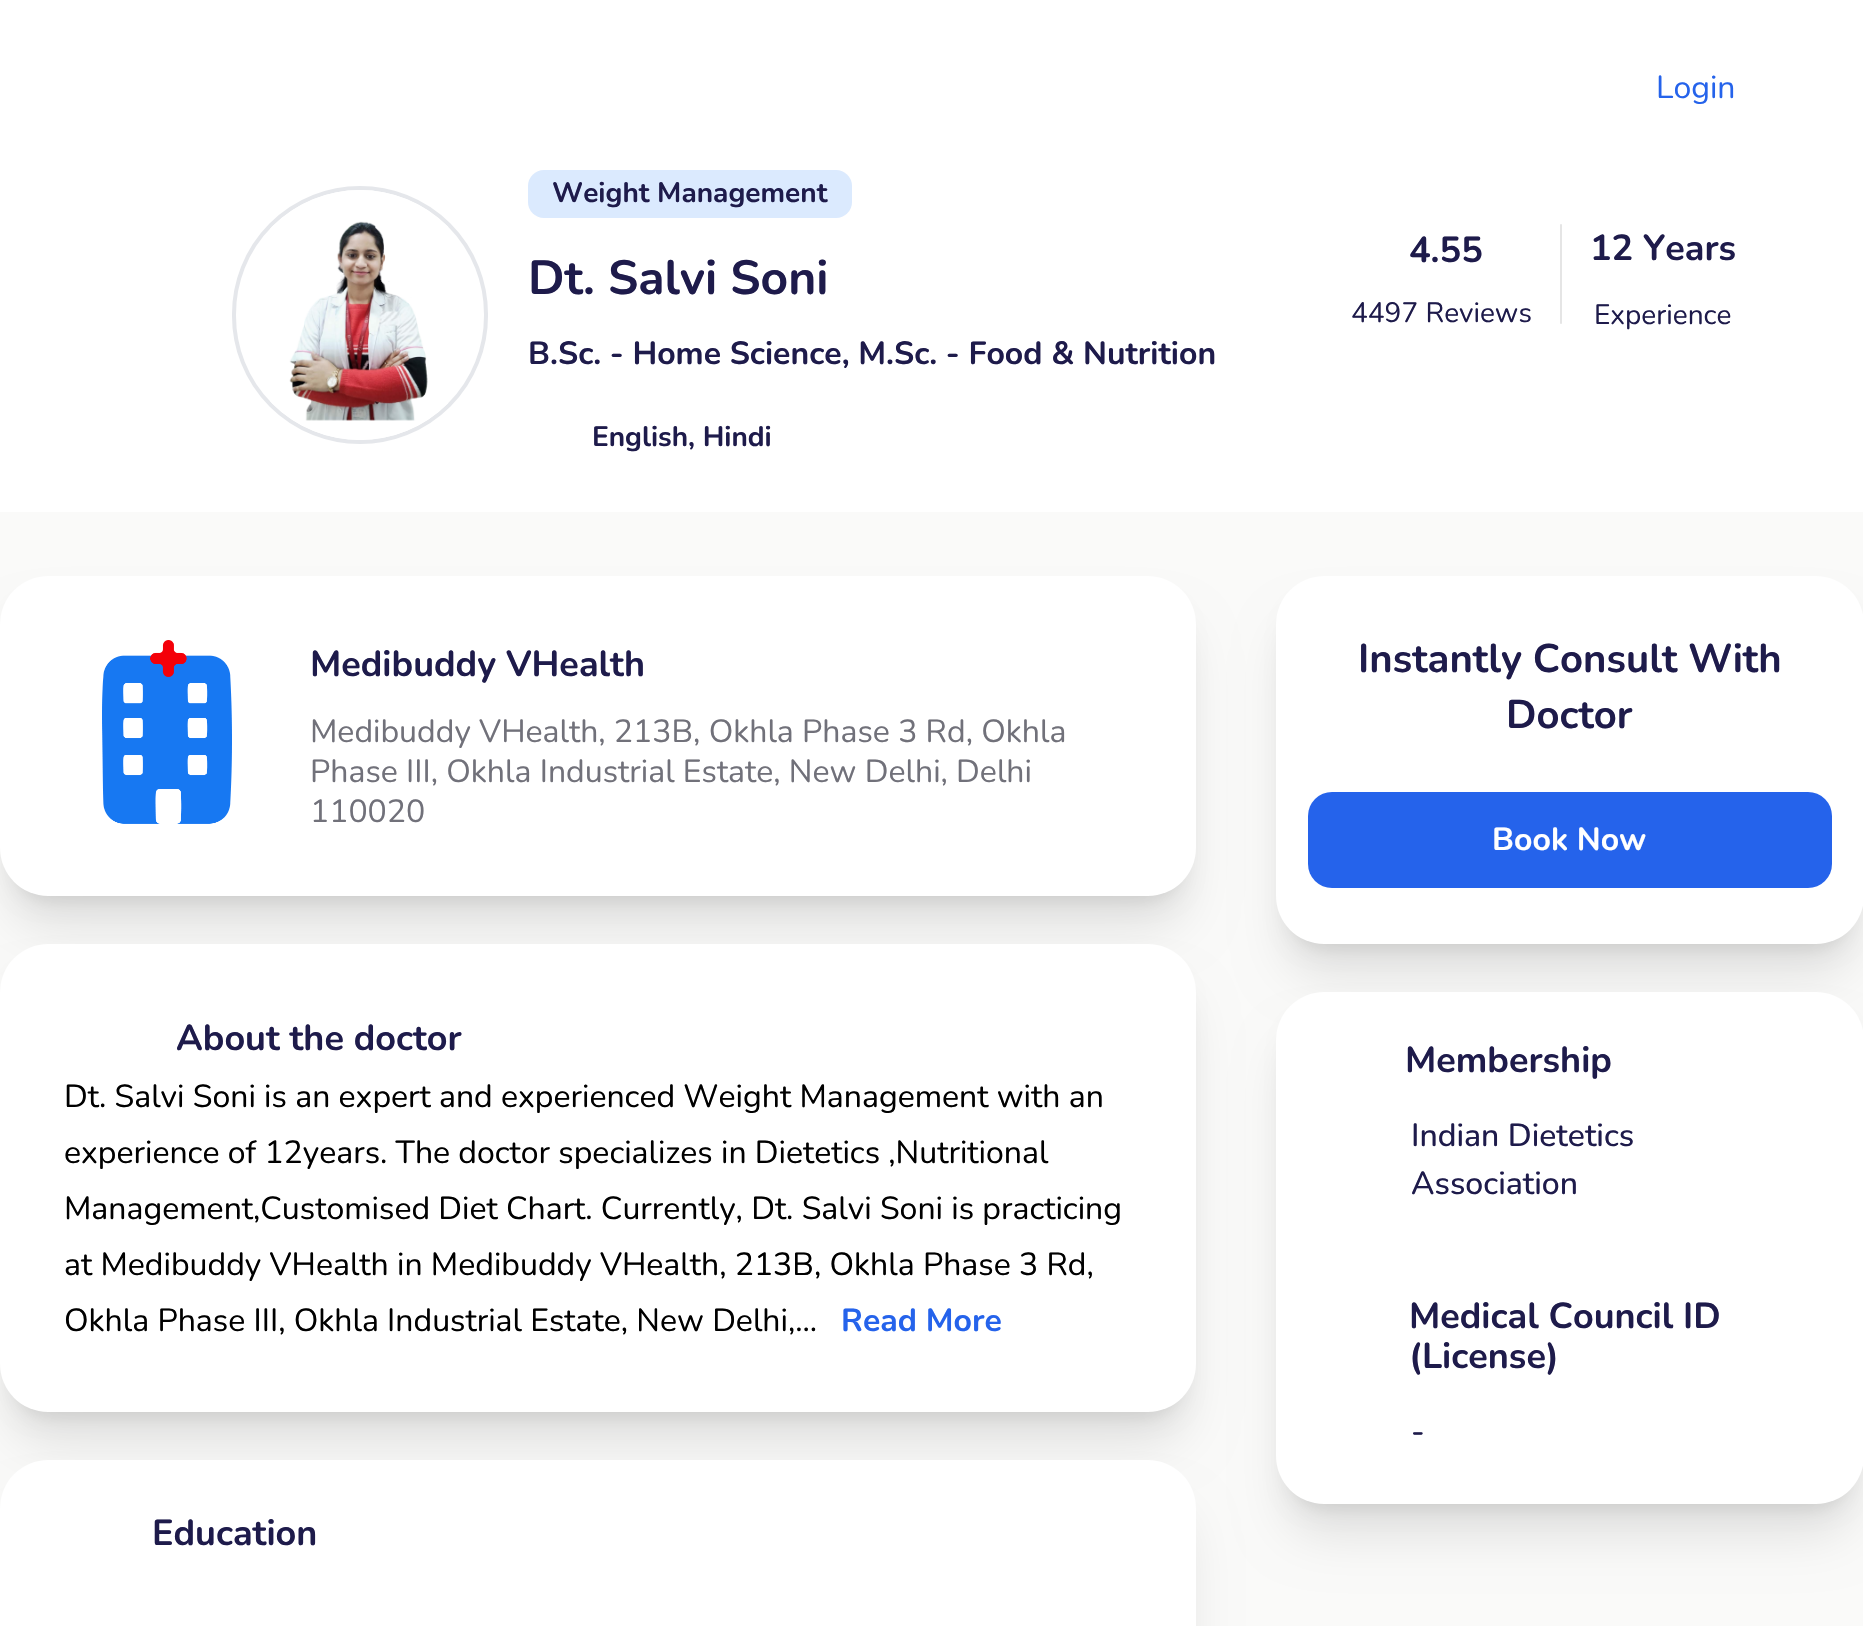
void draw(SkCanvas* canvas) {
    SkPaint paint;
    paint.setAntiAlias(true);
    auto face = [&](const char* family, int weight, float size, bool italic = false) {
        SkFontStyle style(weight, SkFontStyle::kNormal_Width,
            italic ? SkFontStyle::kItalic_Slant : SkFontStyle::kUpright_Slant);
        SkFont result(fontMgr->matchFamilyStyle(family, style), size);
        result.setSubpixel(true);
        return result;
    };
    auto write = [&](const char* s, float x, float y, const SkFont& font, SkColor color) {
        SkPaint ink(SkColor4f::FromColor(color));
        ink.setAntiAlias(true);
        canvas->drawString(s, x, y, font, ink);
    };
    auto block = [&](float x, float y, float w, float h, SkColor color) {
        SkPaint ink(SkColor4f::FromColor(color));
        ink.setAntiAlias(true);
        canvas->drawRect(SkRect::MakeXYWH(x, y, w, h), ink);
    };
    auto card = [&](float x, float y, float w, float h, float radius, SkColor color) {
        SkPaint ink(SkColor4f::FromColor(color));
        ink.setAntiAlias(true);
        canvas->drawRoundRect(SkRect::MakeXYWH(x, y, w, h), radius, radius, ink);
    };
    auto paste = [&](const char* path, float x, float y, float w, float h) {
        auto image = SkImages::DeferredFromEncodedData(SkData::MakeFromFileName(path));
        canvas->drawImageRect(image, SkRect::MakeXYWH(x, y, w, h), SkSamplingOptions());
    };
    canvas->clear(SK_ColorWHITE);
    auto kFont1 = face("Nunito", 400, 32);
    write("Login", 1656, 98, kFont1, SkColorSetRGB(37, 99, 235));
    block(0, 512, 1863, 1114, SkColorSetRGB(250, 250, 249));
    paint.setStyle(SkPaint::kStroke_Style);
    paint.setStrokeWidth(4);
    paint.setColor(SkColorSetRGB(229, 231, 235));
    canvas->drawRoundRect(SkRect::MakeXYWH(234, 188, 252, 254), 126, 126, paint);
    paste("pic1.png", 270, 190, 178, 250);
    card(528, 170, 324, 48, 16, SkColorSetRGB(219, 234, 254));
    auto kFont2 = face("Nunito", 700, 28);
    write("Weight Management", 552, 202, kFont2, SkColorSetRGB(30, 27, 75));
    auto kFont3 = face("Nunito", 700, 48);
    write("Dt. Salvi Soni", 528, 294, kFont3, SkColorSetRGB(30, 27, 75));
    auto kFont4 = face("Nunito", 700, 32);
    write("B.Sc. - Home Science, M.Sc. - Food & Nutrition", 528, 364, kFont4, SkColorSetRGB(30, 27, 75));
    write("English, Hindi", 592, 446, kFont2, SkColorSetRGB(30, 27, 75));
    auto kFont5 = face("Nunito", 700, 36);
    write("4.55", 1409, 262, kFont5, SkColorSetRGB(30, 27, 75));
    auto kFont6 = face("Nunito", 400, 28);
    write("4497 Reviews", 1351, 322, kFont6, SkColorSetRGB(30, 27, 75));
    card(1560, 224, 2, 100, 1, SkColorSetRGB(229, 229, 229));
    write("12 Years", 1590, 260, kFont5, SkColorSetRGB(30, 27, 75));
    write("Experience", 1594, 324, kFont6, SkColorSetRGB(30, 27, 75));
    paint.setStyle(SkPaint::kFill_Style);
    paint.setColor(SkColorSetARGB(26, 0, 0, 0));
    paint.setMaskFilter(SkMaskFilter::MakeBlur(kNormal_SkBlurStyle, 10));
    canvas->drawRoundRect(SkRect::MakeXYWH(12, 604, 1172, 296), 36, 36, paint);
    paint.setMaskFilter(nullptr);
    paint.setMaskFilter(SkMaskFilter::MakeBlur(kNormal_SkBlurStyle, 25));
    canvas->drawRoundRect(SkRect::MakeXYWH(10, 626, 1176, 300), 38, 38, paint);
    paint.setMaskFilter(nullptr);
    card(0, 576, 1196, 320, 48, SK_ColorWHITE);
    paste("pic2.png", 102, 640, 130, 184);
    write("Medibuddy VHealth", 310, 676, kFont5, SkColorSetRGB(30, 27, 75));
    write("Medibuddy VHealth, 213B, Okhla Phase 3 Rd, Okhla", 310, 742, kFont1, SkColorSetRGB(113, 113, 122));
    write("Phase III, Okhla Industrial Estate, New Delhi, Delhi", 310, 782, kFont1, SkColorSetRGB(113, 113, 122));
    write("110020", 310, 822, kFont1, SkColorSetRGB(113, 113, 122));
    paint.setMaskFilter(SkMaskFilter::MakeBlur(kNormal_SkBlurStyle, 10));
    canvas->drawRoundRect(SkRect::MakeXYWH(12, 972, 1172, 444), 36, 36, paint);
    paint.setMaskFilter(nullptr);
    paint.setMaskFilter(SkMaskFilter::MakeBlur(kNormal_SkBlurStyle, 25));
    canvas->drawRoundRect(SkRect::MakeXYWH(10, 994, 1176, 448), 38, 38, paint);
    paint.setMaskFilter(nullptr);
    card(0, 944, 1196, 468, 48, SK_ColorWHITE);
    write("About the doctor", 176, 1050, kFont5, SkColorSetRGB(30, 27, 75));
    write("Dt. Salvi Soni is an expert and experienced Weight Management with an", 64, 1107, kFont1, SK_ColorBLACK);
    write("experience of 12years. The doctor specializes in Dietetics ,Nutritional", 64, 1163, kFont1, SK_ColorBLACK);
    write("Management,Customised Diet Chart. Currently, Dt. Salvi Soni is practicing", 64, 1219, kFont1, SK_ColorBLACK);
    write("at Medibuddy VHealth in Medibuddy VHealth, 213B, Okhla Phase 3 Rd,", 64, 1275, kFont1, SK_ColorBLACK);
    write("Okhla Phase III, Okhla Industrial Estate, New Delhi,...", 64, 1331, kFont1, SK_ColorBLACK);
    write("Read More", 841, 1331, kFont4, SkColorSetRGB(37, 99, 235));
    paint.setMaskFilter(SkMaskFilter::MakeBlur(kNormal_SkBlurStyle, 25));
    canvas->drawRoundRect(SkRect::MakeXYWH(10, 1510, 1176, 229), 38, 38, paint);
    paint.setMaskFilter(nullptr);
    card(0, 1460, 1196, 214, 48, SK_ColorWHITE);
    write("Education", 152, 1545, kFont5, SkColorSetRGB(30, 27, 75));
    paint.setMaskFilter(SkMaskFilter::MakeBlur(kNormal_SkBlurStyle, 10));
    canvas->drawRoundRect(SkRect::MakeXYWH(1288, 604, 564, 344), 36, 36, paint);
    paint.setMaskFilter(nullptr);
    paint.setMaskFilter(SkMaskFilter::MakeBlur(kNormal_SkBlurStyle, 25));
    canvas->drawRoundRect(SkRect::MakeXYWH(1286, 626, 568, 348), 38, 38, paint);
    paint.setMaskFilter(nullptr);
    card(1276, 576, 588, 368, 48, SK_ColorWHITE);
    auto kFont7 = face("Nunito", 700, 40);
    write("Instantly Consult With", 1358, 672, kFont7, SkColorSetRGB(30, 27, 75));
    write("Doctor", 1506, 728, kFont7, SkColorSetRGB(30, 27, 75));
    card(1308, 792, 524, 96, 24, SkColorSetRGB(37, 99, 235));
    write("Book Now", 1492, 850, kFont4, SK_ColorWHITE);
    paint.setMaskFilter(SkMaskFilter::MakeBlur(kNormal_SkBlurStyle, 10));
    canvas->drawRoundRect(SkRect::MakeXYWH(1288, 1020, 564, 488), 36, 36, paint);
    paint.setMaskFilter(nullptr);
    paint.setMaskFilter(SkMaskFilter::MakeBlur(kNormal_SkBlurStyle, 25));
    canvas->drawRoundRect(SkRect::MakeXYWH(1286, 1042, 568, 492), 38, 38, paint);
    paint.setMaskFilter(nullptr);
    card(1276, 992, 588, 512, 48, SK_ColorWHITE);
    write("Membership", 1405, 1072, kFont5, SkColorSetRGB(30, 27, 75));
    auto kFont8 = face("Nunito", 500, 32);
    write("Indian Dietetics", 1411, 1146, kFont8, SkColorSetRGB(30, 27, 75));
    write("Association", 1411, 1194, kFont8, SkColorSetRGB(30, 27, 75));
    write("Medical Council ID", 1409, 1328, kFont5, SkColorSetRGB(30, 27, 75));
    write("(License)", 1409, 1368, kFont5, SkColorSetRGB(30, 27, 75));
    write("-", 1411, 1442, kFont8, SkColorSetRGB(30, 27, 75));
}
